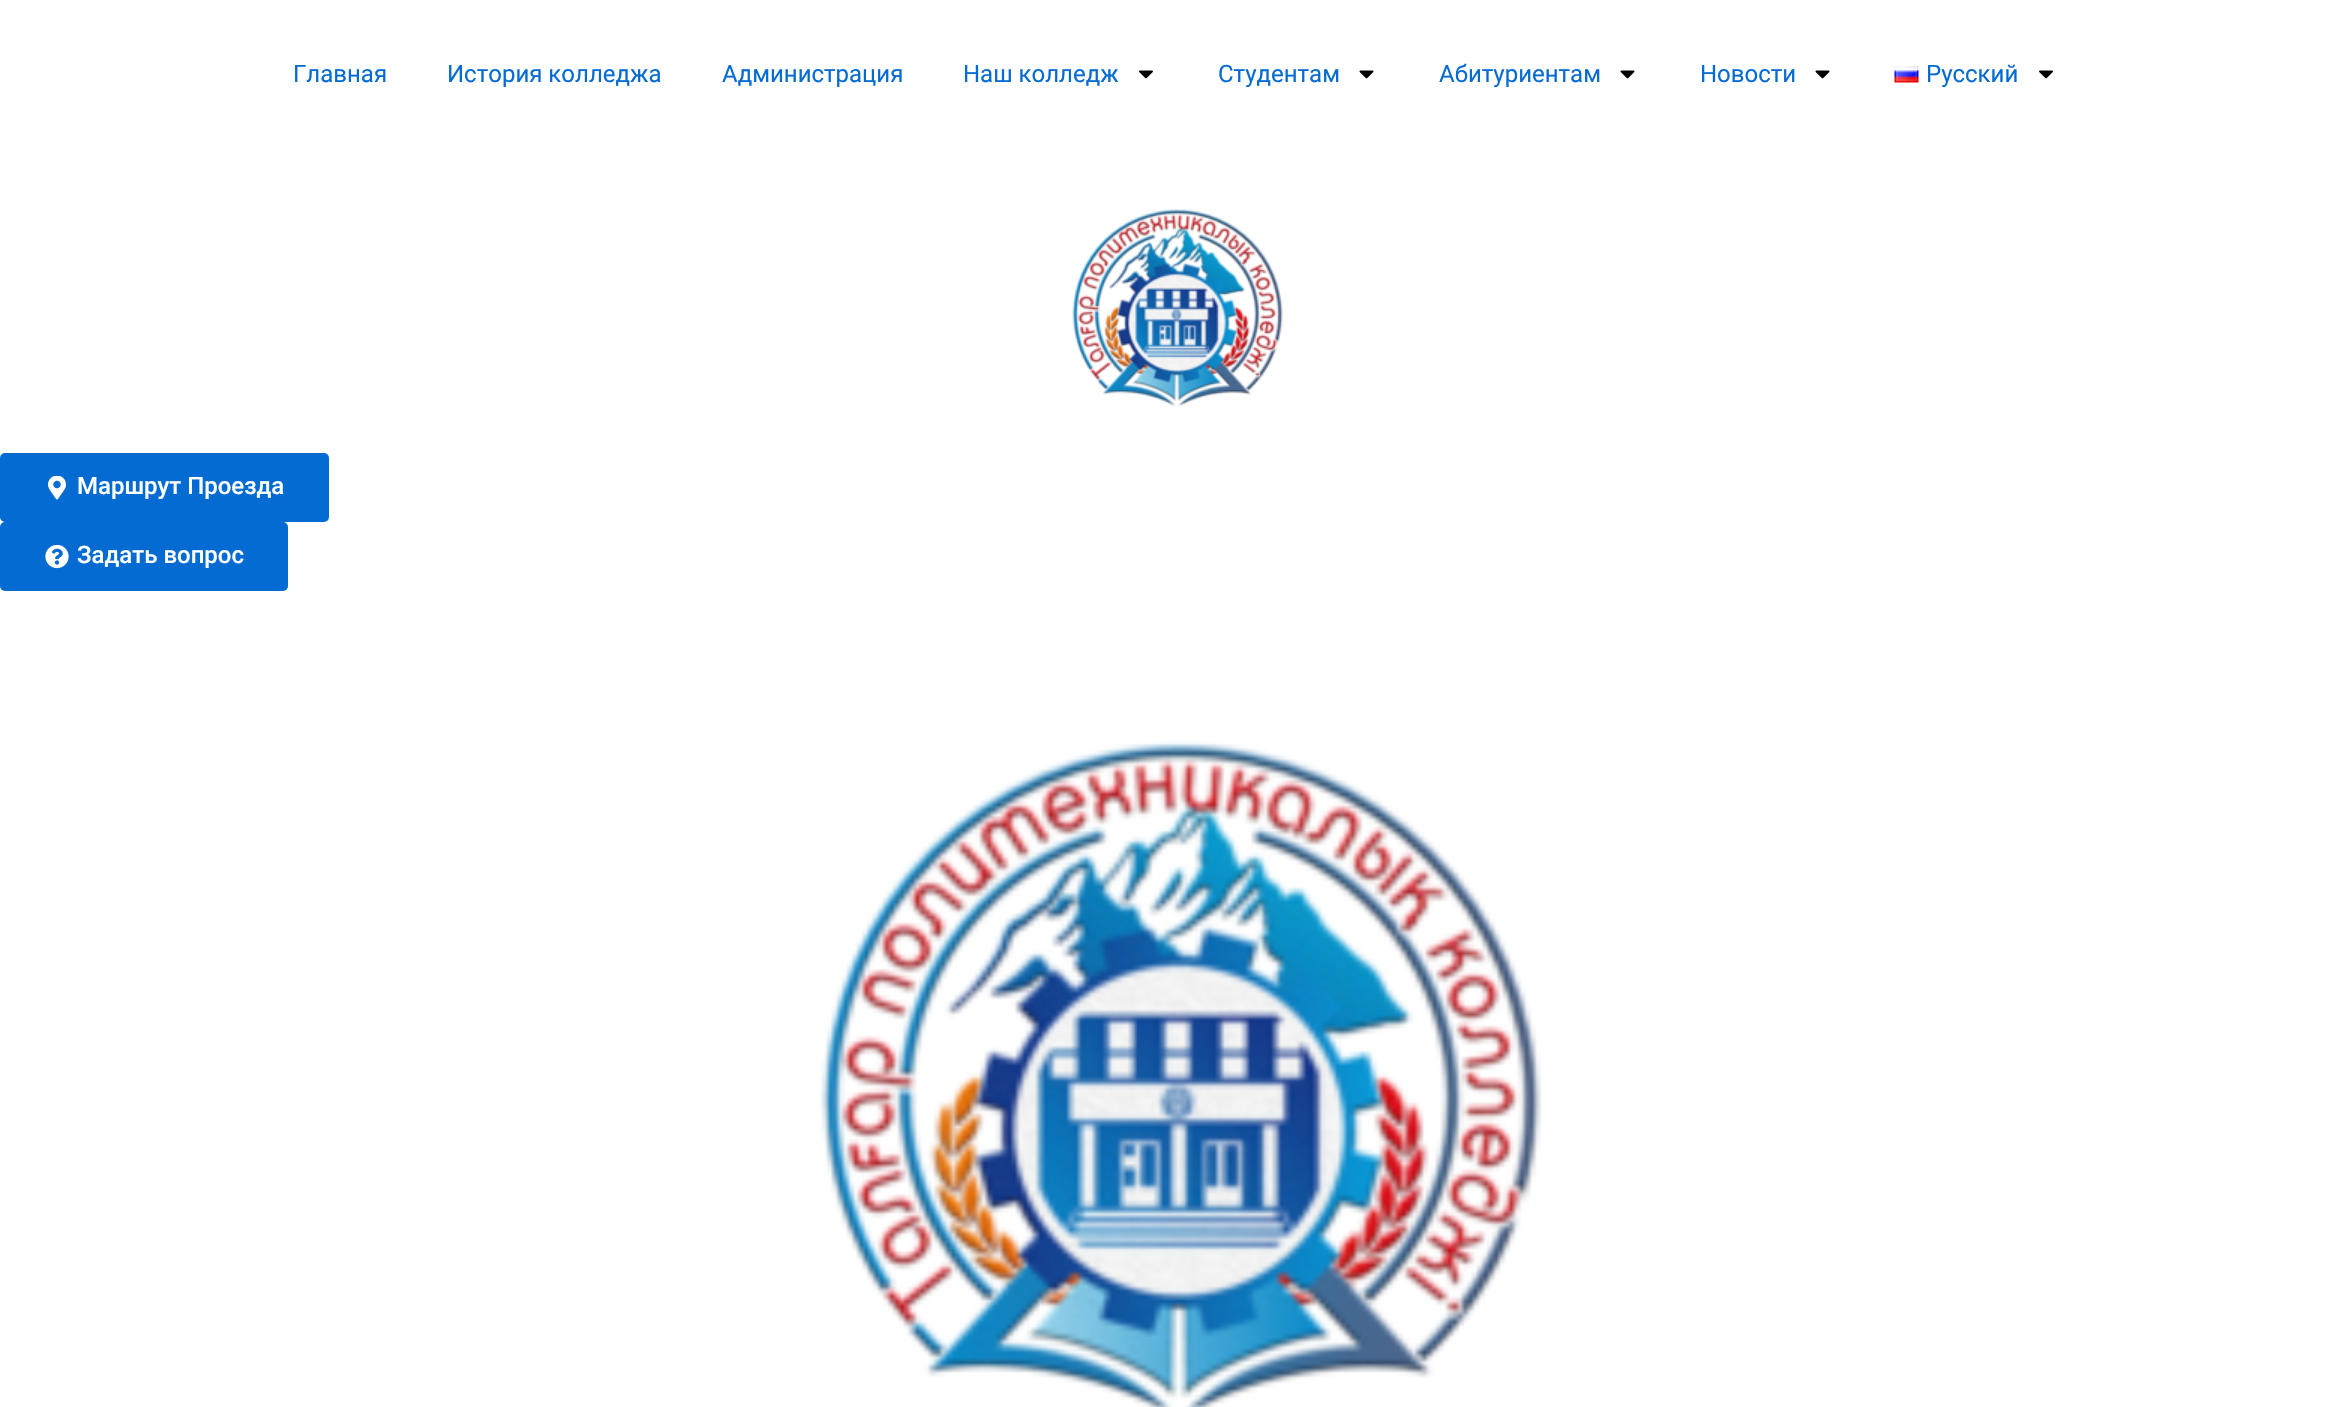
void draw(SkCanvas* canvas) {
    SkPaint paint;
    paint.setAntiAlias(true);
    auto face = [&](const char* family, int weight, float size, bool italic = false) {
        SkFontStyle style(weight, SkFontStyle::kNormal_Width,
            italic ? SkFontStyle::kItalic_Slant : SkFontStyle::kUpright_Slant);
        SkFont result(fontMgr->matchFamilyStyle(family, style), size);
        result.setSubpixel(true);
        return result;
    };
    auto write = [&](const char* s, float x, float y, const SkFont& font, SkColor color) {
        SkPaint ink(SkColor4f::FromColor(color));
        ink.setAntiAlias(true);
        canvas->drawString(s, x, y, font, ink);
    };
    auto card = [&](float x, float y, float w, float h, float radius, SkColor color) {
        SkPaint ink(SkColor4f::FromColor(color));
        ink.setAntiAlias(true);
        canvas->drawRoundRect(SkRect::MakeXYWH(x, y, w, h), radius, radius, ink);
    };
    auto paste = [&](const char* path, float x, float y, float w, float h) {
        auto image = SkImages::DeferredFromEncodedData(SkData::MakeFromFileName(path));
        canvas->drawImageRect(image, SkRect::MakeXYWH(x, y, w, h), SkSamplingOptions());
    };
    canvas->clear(SK_ColorWHITE);
    auto kFont1 = face("Roboto", 400, 24);
    write("Главная", 293, 82, kFont1, SkColorSetRGB(4, 107, 210));
    write("История колледжа", 447, 82, kFont1, SkColorSetRGB(4, 107, 210));
    write("Администрация", 722, 82, kFont1, SkColorSetRGB(4, 107, 210));
    write("Наш колледж", 963, 82, kFont1, SkColorSetRGB(4, 107, 210));
    paste("pic1.png", 1139, 70, 14, 9);
    write("Студентам", 1218, 82, kFont1, SkColorSetRGB(4, 107, 210));
    paste("pic2.png", 1359, 70, 15, 9);
    write("Абитуриентам", 1439, 82, kFont1, SkColorSetRGB(4, 107, 210));
    paste("pic2.png", 1620, 70, 15, 9);
    write("Новости", 1700, 82, kFont1, SkColorSetRGB(4, 107, 210));
    paste("pic2.png", 1815, 70, 15, 9);
    paste("pic3.png", 1894, 66, 25, 17);
    write("Русский", 1926, 82, kFont1, SkColorSetRGB(4, 107, 210));
    paste("pic1.png", 2039, 70, 14, 9);
    paste("pic4.png", 1072, 208, 211, 199);
    card(0, 453, 329, 69, 5, SkColorSetRGB(4, 107, 210));
    paste("pic5.png", 48, 476, 18, 24);
    auto kFont2 = face("Roboto", 500, 24);
    write("Маршрут Проезда", 77, 494, kFont2, SK_ColorWHITE);
    card(0, 522, 288, 69, 5, SkColorSetRGB(4, 107, 210));
    paste("pic6.png", 45, 545, 24, 24);
    write("Задать вопрос", 77, 563, kFont2, SK_ColorWHITE);
    paste("pic7.png", 820, 740, 722, 667);
}
